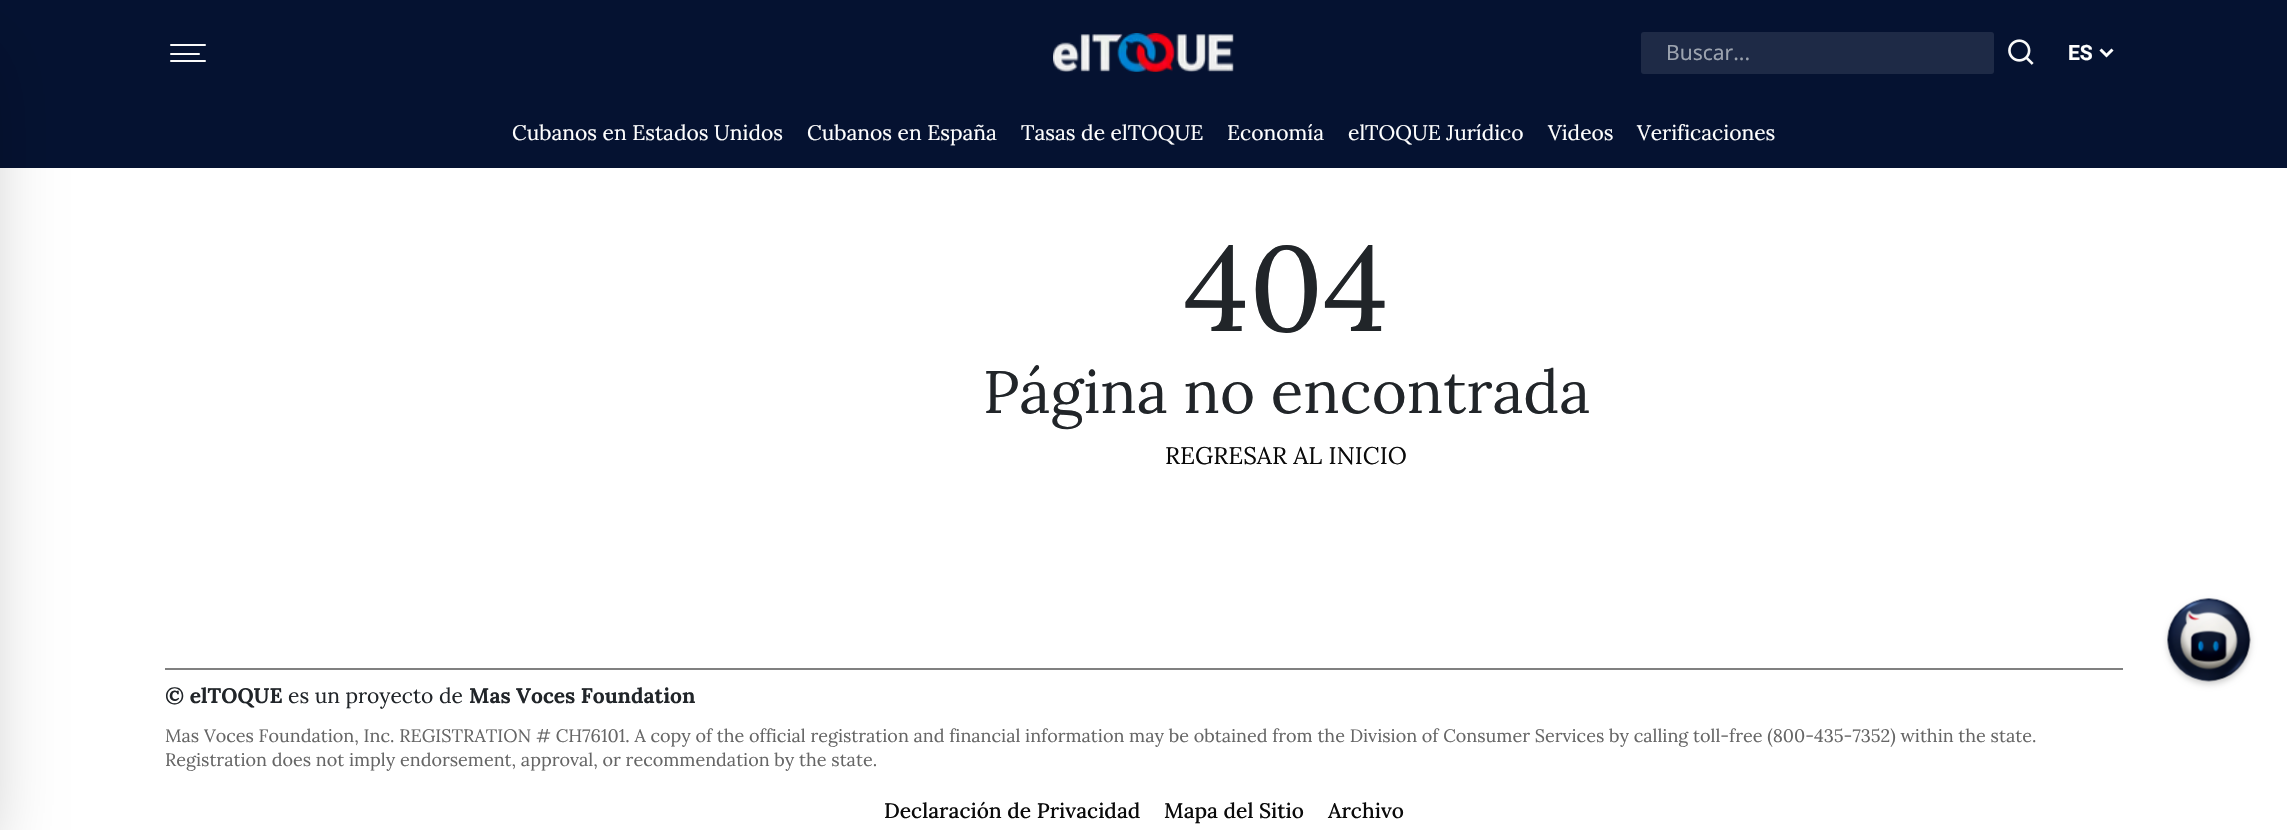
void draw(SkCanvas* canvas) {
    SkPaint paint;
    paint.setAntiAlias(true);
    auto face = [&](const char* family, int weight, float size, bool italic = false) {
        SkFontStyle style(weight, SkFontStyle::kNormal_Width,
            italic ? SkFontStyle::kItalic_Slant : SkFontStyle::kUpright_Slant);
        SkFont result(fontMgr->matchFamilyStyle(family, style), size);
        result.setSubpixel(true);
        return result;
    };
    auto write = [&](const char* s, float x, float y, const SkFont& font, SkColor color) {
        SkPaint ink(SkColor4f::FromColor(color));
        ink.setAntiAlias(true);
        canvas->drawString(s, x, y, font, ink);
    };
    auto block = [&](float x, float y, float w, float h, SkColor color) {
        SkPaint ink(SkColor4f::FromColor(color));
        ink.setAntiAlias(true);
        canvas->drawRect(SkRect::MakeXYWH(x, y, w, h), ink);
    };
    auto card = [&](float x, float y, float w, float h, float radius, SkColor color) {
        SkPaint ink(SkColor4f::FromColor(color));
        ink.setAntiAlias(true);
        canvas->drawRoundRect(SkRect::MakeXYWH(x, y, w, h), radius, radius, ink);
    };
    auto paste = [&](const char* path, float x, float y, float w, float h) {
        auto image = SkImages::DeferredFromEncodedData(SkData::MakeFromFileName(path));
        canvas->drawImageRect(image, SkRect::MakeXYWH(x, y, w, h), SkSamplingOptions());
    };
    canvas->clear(SK_ColorWHITE);
    block(0, 0, 2287, 168, SkColorSetRGB(5, 18, 49));
    paint.setColor(SkColorSetARGB(64, 0, 0, 0));
    paint.setMaskFilter(SkMaskFilter::MakeBlur(kNormal_SkBlurStyle, 37.5f));
    canvas->drawRect(SkRect::MakeXYWH(-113, 56, 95, 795), paint);
    paint.setMaskFilter(nullptr);
    card(170, 44, 36, 2, 1, SkColorSetRGB(250, 250, 250));
    card(170, 53, 30, 2, 1, SkColorSetRGB(250, 250, 250));
    card(170, 60, 36, 2, 1, SkColorSetRGB(250, 250, 250));
    paste("pic1.png", 1053, 33, 181, 39);
    card(1641, 32, 353, 42, 3, SkColorSetRGB(30, 42, 70));
    auto kFont1 = face("Noto Sans", 400, 21);
    write("Buscar...", 1666, 60, kFont1, SkColorSetRGB(156, 163, 175));
    paste("pic2.png", 2008, 39, 26, 26);
    paint.setStyle(SkPaint::kStroke_Style);
    paint.setStrokeWidth(3);
    paint.setColor(SK_ColorWHITE);
    canvas->drawPath(SkPathBuilder().moveTo(2100.5f, 49.5f).lineTo(2106.5f, 55.5f).lineTo(2112.5f, 49.5f).detach(), paint);
    auto kFont2 = face("Roboto", 700, 21);
    write("ES", 2068, 60, kFont2, SK_ColorWHITE);
    auto kFont3 = face("Lora", 400, 21);
    write("Cubanos en Estados Unidos", 512, 140, kFont3, SK_ColorWHITE);
    write("Cubanos en España", 807, 140, kFont3, SK_ColorWHITE);
    write("Tasas de elTOQUE", 1021, 140, kFont3, SK_ColorWHITE);
    write("Economía", 1227, 140, kFont3, SK_ColorWHITE);
    write("elTOQUE Jurídico", 1348, 140, kFont3, SK_ColorWHITE);
    write("Videos", 1548, 140, kFont3, SK_ColorWHITE);
    write("Verificaciones", 1637, 140, kFont3, SK_ColorWHITE);
    auto kFont4 = face("Lora", 400, 120);
    write("404", 1184, 331, kFont4, SkColorSetRGB(33, 37, 41));
    auto kFont5 = face("Lora", 400, 60);
    write("Página no encontrada", 983, 413, kFont5, SkColorSetRGB(33, 37, 41));
    auto kFont6 = face("Lora", 400, 24);
    write("REGRESAR AL INICIO", 1165, 464, kFont6, SkColorSetRGB(10, 10, 10));
    block(165, 668, 1958, 2, SkColorSetRGB(128, 128, 128));
    auto kFont7 = face("Lora", 700, 21);
    write("© elTOQUE", 165, 703, kFont7, SkColorSetRGB(33, 37, 41));
    write("es un proyecto de", 288, 703, kFont3, SkColorSetRGB(33, 37, 41));
    write("Mas Voces Foundation", 469, 703, kFont7, SkColorSetRGB(33, 37, 41));
    auto kFont8 = face("Lora", 400, 18);
    write("Mas Voces Foundation, Inc. REGISTRATION # CH76101. A copy of the official registration and financial information may be obtained from the Division of Consumer Services by calling toll-free (800-435-7352) within the state.", 165, 742, kFont8, SkColorSetRGB(102, 102, 102));
    write("Registration does not imply endorsement, approval, or recommendation by the state.", 165, 766, kFont8, SkColorSetRGB(102, 102, 102));
    auto kFont9 = face("Lora", 500, 21);
    write("Declaración de Privacidad", 884, 818, kFont9, SkColorSetRGB(10, 10, 10));
    write("Mapa del Sitio", 1164, 818, kFont9, SkColorSetRGB(10, 10, 10));
    write("Archivo", 1328, 818, kFont9, SkColorSetRGB(10, 10, 10));
    paint.setStyle(SkPaint::kFill_Style);
    paint.setColor(SkColorSetARGB(51, 0, 0, 0));
    paint.setMaskFilter(SkMaskFilter::MakeBlur(kNormal_SkBlurStyle, 3));
    canvas->drawRoundRect(SkRect::MakeXYWH(2168, 602, 82, 82), 41, 41, paint);
    paint.setMaskFilter(nullptr);
    paste("pic3.png", 2167, 598, 84, 84);
}
